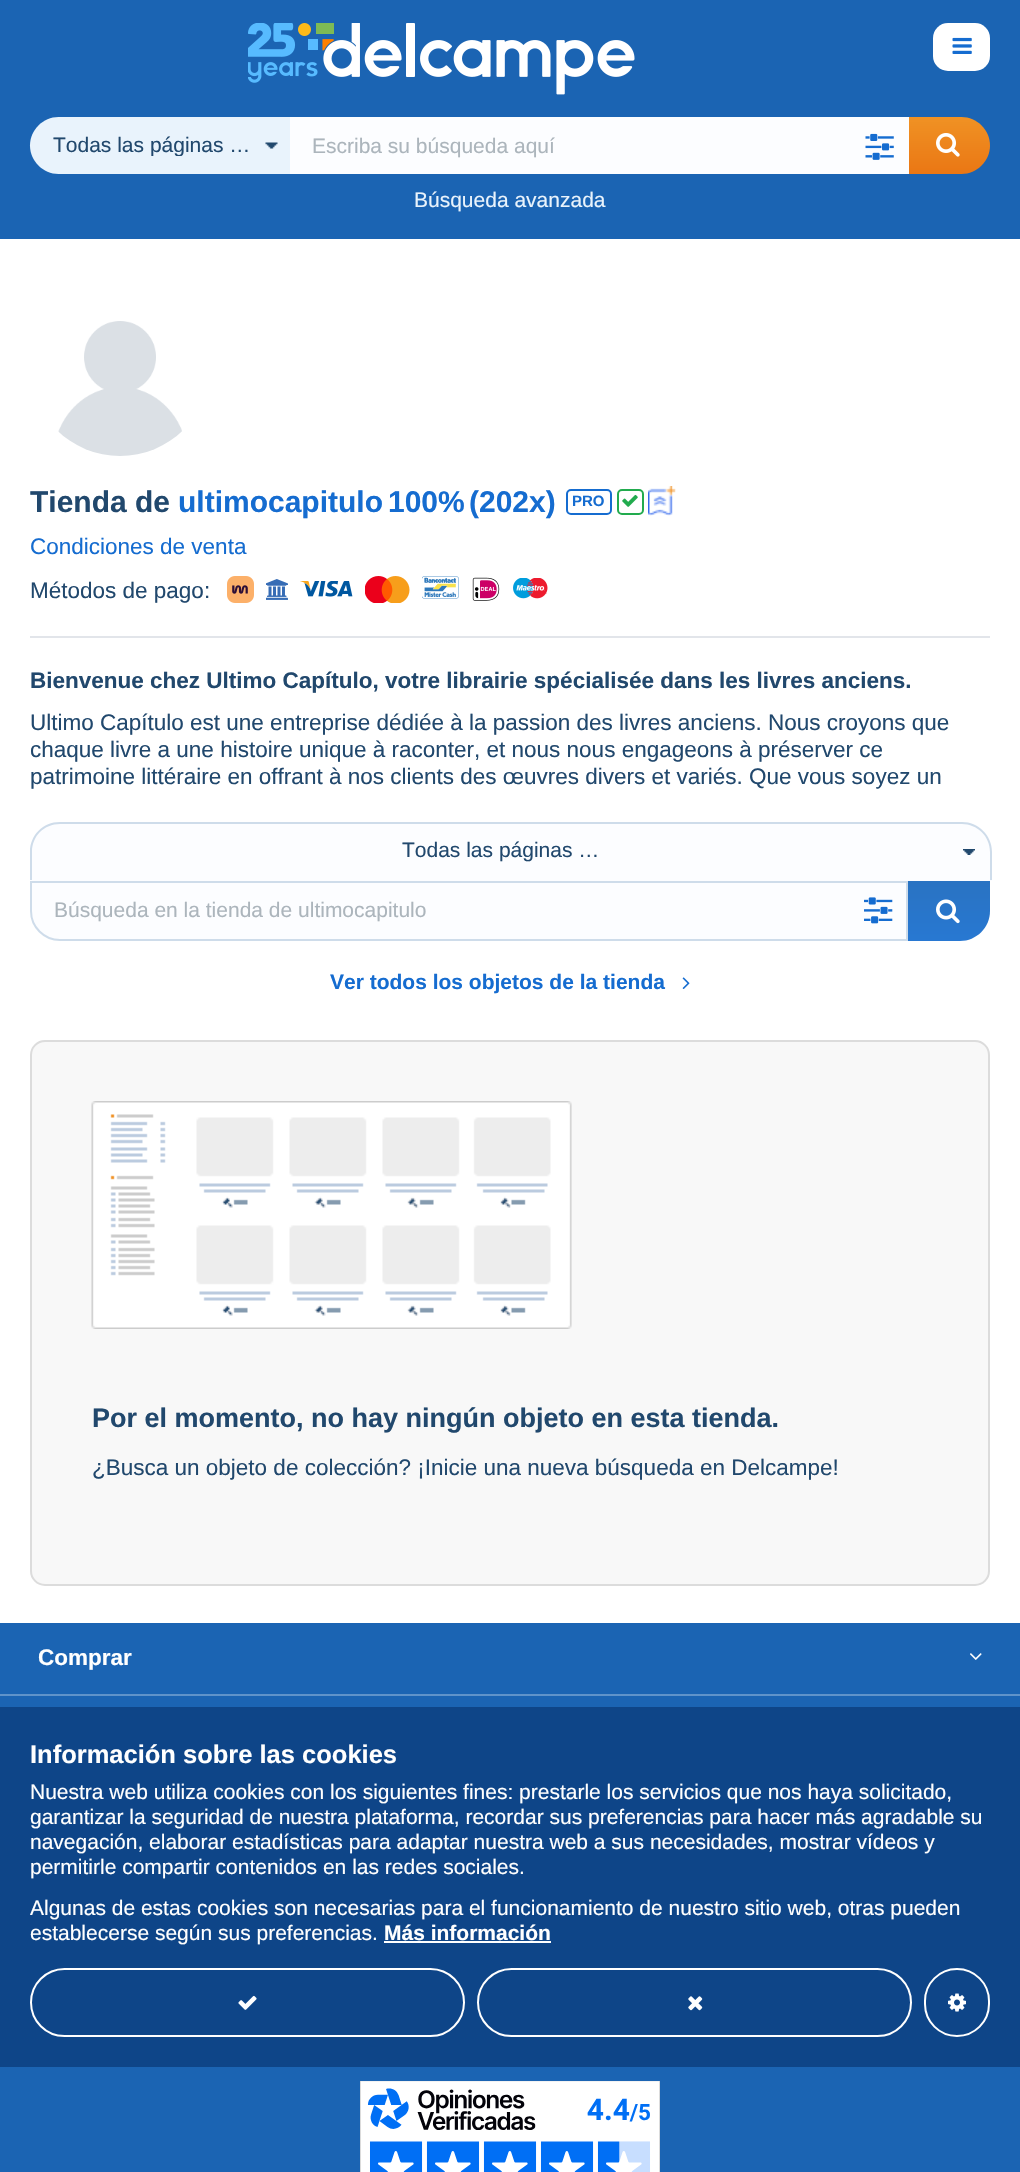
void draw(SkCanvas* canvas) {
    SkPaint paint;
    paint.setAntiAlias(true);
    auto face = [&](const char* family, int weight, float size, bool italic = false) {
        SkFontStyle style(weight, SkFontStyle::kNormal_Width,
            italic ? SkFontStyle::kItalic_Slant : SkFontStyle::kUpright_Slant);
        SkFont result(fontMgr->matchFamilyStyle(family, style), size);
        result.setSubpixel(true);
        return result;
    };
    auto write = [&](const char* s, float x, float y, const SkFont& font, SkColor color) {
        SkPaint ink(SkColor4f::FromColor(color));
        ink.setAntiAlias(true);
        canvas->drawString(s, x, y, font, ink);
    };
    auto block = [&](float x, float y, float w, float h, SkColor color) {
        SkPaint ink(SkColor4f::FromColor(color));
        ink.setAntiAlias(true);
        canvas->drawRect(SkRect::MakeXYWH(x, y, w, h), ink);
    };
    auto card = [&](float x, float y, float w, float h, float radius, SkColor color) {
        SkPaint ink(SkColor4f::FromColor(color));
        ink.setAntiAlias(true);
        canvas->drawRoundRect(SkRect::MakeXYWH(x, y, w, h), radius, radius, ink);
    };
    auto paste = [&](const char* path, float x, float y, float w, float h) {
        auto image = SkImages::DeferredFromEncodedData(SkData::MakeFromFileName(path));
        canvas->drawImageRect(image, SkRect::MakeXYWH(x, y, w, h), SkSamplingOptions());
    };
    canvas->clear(SK_ColorWHITE);
    block(0, 0, 1020, 239, SkColorSetRGB(27, 100, 179));
    paste("pic1.png", 248, 23, 387, 72);
    card(933, 23, 57, 48, 15, SK_ColorWHITE);
    paste("pic2.png", 952, 37, 20, 17);
    paint.setColor(SkColorSetRGB(233, 243, 252));
    canvas->drawPath(SkPathBuilder().moveTo(58.5f, 117).lineTo(293, 117).lineTo(293, 174).lineTo(58.5f, 174).cubicTo(43, 174, 30, 161, 30, 145.5f).cubicTo(30, 130, 43, 117, 58.5f, 117).close().detach(), paint);
    paste("pic3.png", 265, 142, 13, 7);
    canvas->save();
    canvas->clipRect(SkRect::MakeXYWH(53, 132, 202, 24));
    auto kFont1 = face("Liberation Sans", 400, 21);
    write("Todas las páginas …", 53, 152, kFont1, SkColorSetRGB(33, 72, 109));
    canvas->restore();
    {
        const SkColor colors[] = {SkColorSetRGB(240, 146, 36), SkColorSetRGB(234, 119, 20)};
        const float stops[] = {0, 0.99f};
        const SkPoint ends[] = {{948, 117}, {948, 174}};
        paint.setShader(SkGradientShader::MakeLinear(ends, colors, stops, 2, SkTileMode::kClamp));
        paint.setAlpha(255);
    }
    canvas->drawPath(SkPathBuilder().moveTo(906, 117).lineTo(961.5f, 117).cubicTo(977, 117, 990, 130, 990, 145.5f).cubicTo(990, 161, 977, 174, 961.5f, 174).lineTo(906, 174).close().detach(), paint);
    block(290, 117, 619, 57, SkColorSetRGB(252, 253, 255));
    write("Escriba su búsqueda aquí", 312, 153, kFont1, SkColorSetRGB(172, 181, 188));
    paste("pic4.png", 865, 133, 29, 27);
    paste("pic5.png", 936, 133, 24, 24);
    write("Búsqueda avanzada", 414, 207, kFont1, SkColorSetRGB(233, 243, 252));
    paste("pic6.png", 58, 321, 124, 135);
    auto kFont2 = face("Liberation Sans", 700, 30);
    write("Tienda de", 30, 512, kFont2, SkColorSetRGB(33, 72, 109));
    write("ultimocapitulo", 178, 512, kFont2, SkColorSetRGB(21, 108, 208));
    write("100%", 388, 512, kFont2, SkColorSetRGB(21, 108, 208));
    write("(202x)", 469, 512, kFont2, SkColorSetRGB(21, 108, 208));
    paint.setStyle(SkPaint::kStroke_Style);
    paint.setStrokeWidth(2);
    paint.setShader(nullptr);
    paint.setColor(SkColorSetRGB(21, 108, 208));
    canvas->drawRoundRect(SkRect::MakeXYWH(567, 490, 44, 24), 4, 4, paint);
    auto kFont3 = face("Liberation Sans", 700, 15);
    write("PRO", 572, 506, kFont3, SkColorSetRGB(21, 108, 208));
    paint.setColor(SkColorSetRGB(34, 171, 78));
    canvas->drawRoundRect(SkRect::MakeXYWH(618, 490, 25, 24), 4, 4, paint);
    paste("pic7.png", 622, 494, 16, 13);
    paste("pic8.png", 648, 486, 28, 30);
    auto kFont4 = face("Liberation Sans", 400, 22.5f);
    write("Condiciones de venta", 30, 554, kFont4, SkColorSetRGB(21, 108, 208));
    write("Métodos de pago:", 30, 598, kFont4, SkColorSetRGB(33, 72, 109));
    paste("pic9.png", 227, 576, 27, 27);
    paste("pic10.png", 266, 579, 22, 21);
    paste("pic11.png", 300, 581, 53, 16);
    paste("pic12.png", 365, 576, 45, 27);
    paste("pic13.png", 422, 576, 37, 23);
    paste("pic14.png", 472, 577, 28, 24);
    paste("pic15.png", 513, 578, 35, 21);
    block(30, 636, 960, 2, SkColorSetRGB(226, 229, 234));
    auto kFont5 = face("Liberation Sans", 700, 22.5f);
    write("Bienvenue chez Ultimo Capítulo, votre librairie spécialisée dans les livres anciens.", 30, 688, kFont5, SkColorSetRGB(33, 72, 109));
    write("Ultimo Capítulo est une entreprise dédiée à la passion des livres anciens. Nous croyons que", 30, 730, kFont4, SkColorSetRGB(33, 72, 109));
    write("chaque livre a une histoire unique à raconter, et nous nous engageons à préserver ce", 30, 757, kFont4, SkColorSetRGB(33, 72, 109));
    write("patrimoine littéraire en offrant à nos clients des œuvres divers et variés. Que vous soyez un", 30, 784, kFont4, SkColorSetRGB(33, 72, 109));
    paint.setStyle(SkPaint::kFill_Style);
    paint.setColor(SkColorSetRGB(252, 253, 255));
    canvas->drawPath(SkPathBuilder().moveTo(60, 822).lineTo(962, 822).cubicTo(978.5f, 822, 992, 835.5f, 992, 852).lineTo(992, 881).lineTo(30, 881).lineTo(30, 852).cubicTo(30, 835.5f, 43.5f, 822, 60, 822).close().detach(), paint);
    paste("pic16.png", 963, 849, 12, 6);
    paint.setColor(SkColorSetRGB(206, 220, 234));
    canvas->drawPath(SkPathBuilder(SkPathFillType::kEvenOdd).moveTo(60, 822).lineTo(962, 822).cubicTo(978, 822, 992, 835, 992, 852).lineTo(992, 880).lineTo(30, 880).lineTo(30, 852).cubicTo(30, 835, 43, 822, 60, 822).close().moveTo(60, 824).lineTo(962, 824).cubicTo(977, 824, 990, 836, 990, 852).lineTo(990, 880).lineTo(32, 880).lineTo(32, 852).cubicTo(32, 836, 44, 824, 60, 824).close().detach(), paint);
    write("Todas las páginas …", 402, 857, kFont1, SkColorSetRGB(33, 72, 109));
    {
        const SkColor colors[] = {SkColorSetRGB(41, 115, 194), SkColorSetRGB(40, 120, 210)};
        const float stops[] = {0, 0.99f};
        const SkPoint ends[] = {{948, 881}, {948, 941}};
        paint.setShader(SkGradientShader::MakeLinear(ends, colors, stops, 2, SkTileMode::kClamp));
        paint.setAlpha(255);
    }
    canvas->drawPath(SkPathBuilder().moveTo(906, 881).lineTo(990, 881).lineTo(990, 911).cubicTo(990, 927.5f, 976.5f, 941, 960, 941).lineTo(906, 941).close().detach(), paint);
    paint.setShader(nullptr);
    paint.setColor(SkColorSetRGB(252, 253, 255));
    canvas->drawPath(SkPathBuilder().moveTo(31, 882).lineTo(907, 882).lineTo(907, 940).lineTo(60, 940).cubicTo(44, 940, 31, 927, 31, 911).close().detach(), paint);
    paint.setStyle(SkPaint::kStroke_Style);
    paint.setColor(SkColorSetRGB(206, 220, 234));
    canvas->drawPath(SkPathBuilder().moveTo(31, 882).lineTo(907, 882).lineTo(907, 940).lineTo(60, 940).cubicTo(44, 940, 31, 927, 31, 911).close().detach(), paint);
    write("Búsqueda en la tienda de ultimocapitulo", 54, 917, kFont1, SkColorSetRGB(172, 181, 188));
    paste("pic17.png", 864, 897, 29, 27);
    paste("pic18.png", 936, 899, 24, 25);
    auto kFont6 = face("Liberation Sans", 700, 21);
    write("Ver todos los objetos de la tienda", 330, 989, kFont6, SkColorSetRGB(21, 108, 208));
    paste("pic19.png", 682, 977, 8, 12);
    paint.setStyle(SkPaint::kFill_Style);
    paint.setColor(SkColorSetRGB(248, 248, 248));
    canvas->drawRoundRect(SkRect::MakeXYWH(31, 1041, 958, 544), 14, 14, paint);
    paint.setStyle(SkPaint::kStroke_Style);
    paint.setColor(SkColorSetRGB(220, 220, 220));
    canvas->drawRoundRect(SkRect::MakeXYWH(31, 1041, 958, 544), 14, 14, paint);
    paste("pic20.png", 91, 1101, 481, 228);
    auto kFont7 = face("Liberation Sans", 700, 27);
    write("Por el momento, no hay ningún objeto en esta tienda.", 92, 1427, kFont7, SkColorSetRGB(33, 72, 109));
    write("¿Busca un objeto de colección? ¡Inicie una nueva búsqueda en Delcampe!", 92, 1475, kFont4, SkColorSetRGB(33, 72, 109));
    block(0, 1623, 1020, 549, SkColorSetRGB(27, 100, 179));
    block(0, 1694, 1020, 2, SkColorSetRGB(95, 147, 202));
    write("Comprar", 38, 1665, kFont5, SK_ColorWHITE);
    paste("pic21.png", 970, 1653, 12, 7);
    paste("pic22.png", 360, 2081, 300, 91);
    block(0, 1707, 1020, 360, SkColorSetRGB(14, 69, 136));
    auto kFont8 = face("Liberation Sans", 700, 25.5f);
    write("Información sobre las cookies", 30, 1763, kFont8, SK_ColorWHITE);
    write("Nuestra web utiliza cookies con los siguientes fines: prestarle los servicios que nos haya solicitado,", 30, 1799, kFont1, SK_ColorWHITE);
    write("garantizar la seguridad de nuestra plataforma, recordar sus preferencias para hacer más agradable su", 30, 1824, kFont1, SK_ColorWHITE);
    write("navegación, elaborar estadísticas para adaptar nuestra web a sus necesidades, mostrar vídeos y", 30, 1849, kFont1, SK_ColorWHITE);
    write("permitirle compartir contenidos en las redes sociales.", 30, 1874, kFont1, SK_ColorWHITE);
    write("Algunas de estas cookies son necesarias para el funcionamiento de nuestro sitio web, otras pueden", 30, 1915, kFont1, SK_ColorWHITE);
    write("establecerse según sus preferencias.", 30, 1940, kFont1, SK_ColorWHITE);
    write("Más información", 384, 1940, kFont6, SK_ColorWHITE);
    block(384, 1941, 167, 2, SK_ColorWHITE);
    paint.setColor(SK_ColorWHITE);
    canvas->drawRoundRect(SkRect::MakeXYWH(31, 1969, 433, 67), 33.5f, 33.5f, paint);
    paste("pic23.png", 238, 1995, 19, 15);
    canvas->drawRoundRect(SkRect::MakeXYWH(478, 1969, 433, 67), 33.5f, 33.5f, paint);
    paste("pic24.png", 688, 1996, 15, 15);
    canvas->drawRoundRect(SkRect::MakeXYWH(925, 1969, 64, 67), 32, 32, paint);
    paste("pic25.png", 948, 1993, 18, 19);
}
